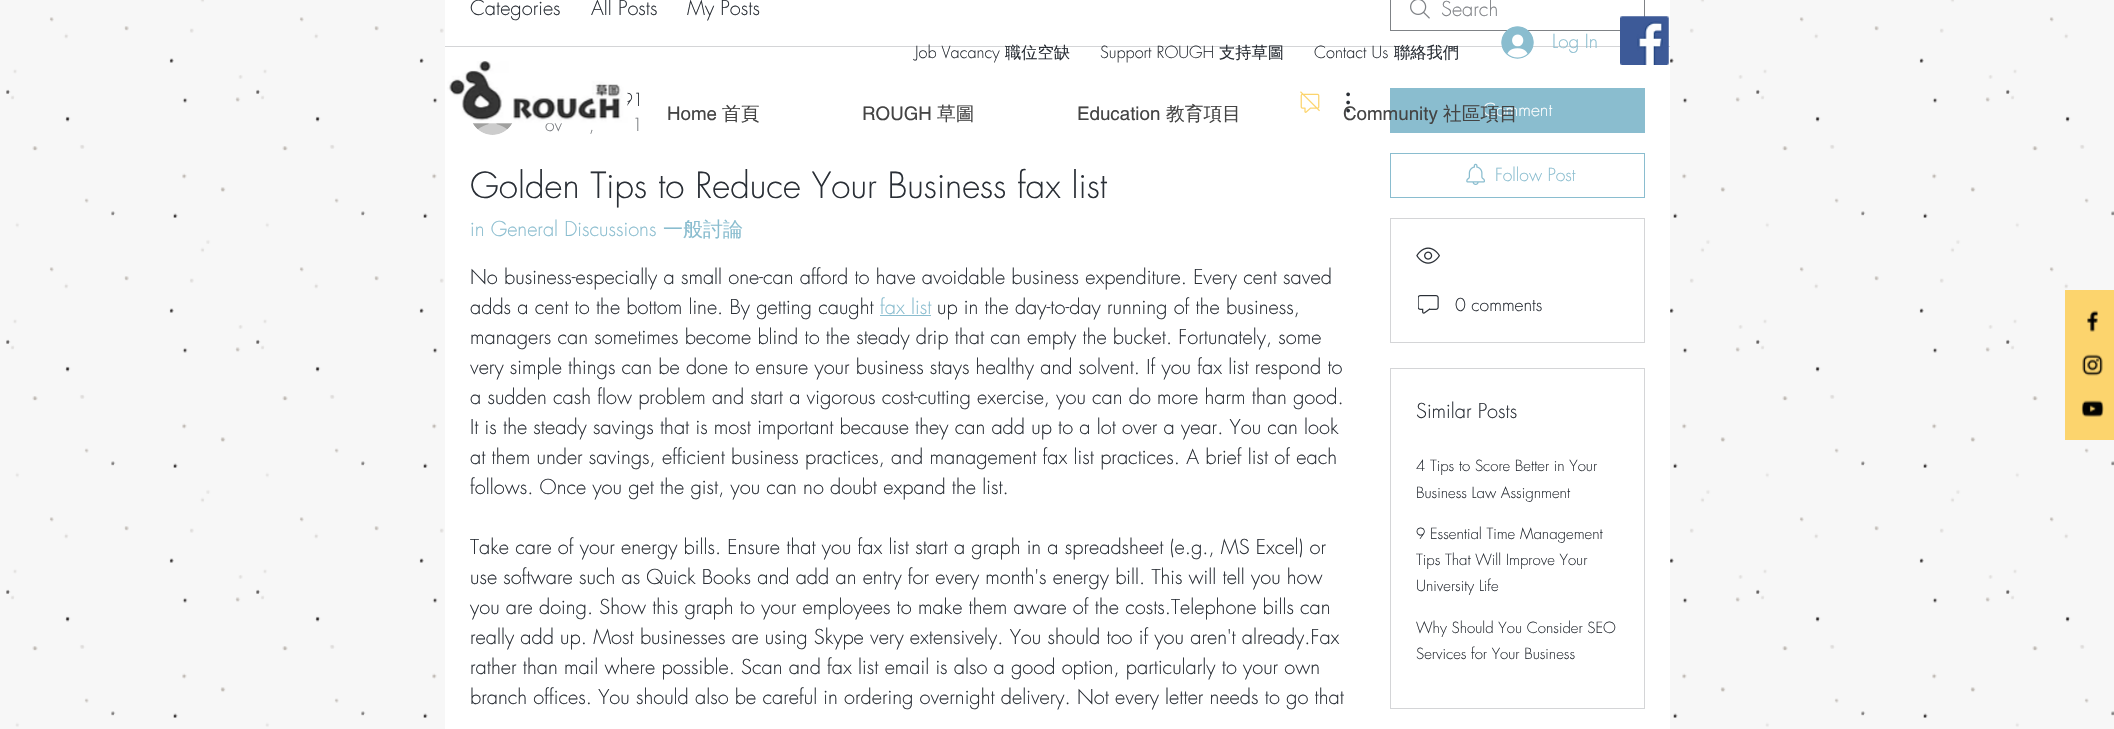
void draw(SkCanvas* canvas) {
    SkPaint paint;
    paint.setAntiAlias(true);
    auto face = [&](const char* family, int weight, float size, bool italic = false) {
        SkFontStyle style(weight, SkFontStyle::kNormal_Width,
            italic ? SkFontStyle::kItalic_Slant : SkFontStyle::kUpright_Slant);
        SkFont result(fontMgr->matchFamilyStyle(family, style), size);
        result.setSubpixel(true);
        return result;
    };
    auto write = [&](const char* s, float x, float y, const SkFont& font, SkColor color) {
        SkPaint ink(SkColor4f::FromColor(color));
        ink.setAntiAlias(true);
        canvas->drawString(s, x, y, font, ink);
    };
    auto block = [&](float x, float y, float w, float h, SkColor color) {
        SkPaint ink(SkColor4f::FromColor(color));
        ink.setAntiAlias(true);
        canvas->drawRect(SkRect::MakeXYWH(x, y, w, h), ink);
    };
    auto paste = [&](const char* path, float x, float y, float w, float h) {
        auto image = SkImages::DeferredFromEncodedData(SkData::MakeFromFileName(path));
        canvas->drawImageRect(image, SkRect::MakeXYWH(x, y, w, h), SkSamplingOptions());
    };
    canvas->clear(SkColorSetRGB(247, 247, 247));
    paste("pic1.png", 6, 0, 2108, 727);
    block(445, 0, 1225, 729, SK_ColorWHITE);
    block(445, 46, 1225, 1, SkColorSetRGB(212, 213, 215));
    auto kFont1 = face("futura", 300, 20);
    write("Categories", 470, 15, kFont1, SkColorSetRGB(42, 47, 54));
    write("All Posts", 591, 15, kFont1, SkColorSetRGB(42, 47, 54));
    write("My Posts", 687, 15, kFont1, SkColorSetRGB(42, 47, 54));
    paste("pic2.png", 1410, 0, 20, 19);
    paint.setStyle(SkPaint::kStroke_Style);
    paint.setStrokeWidth(1);
    paint.setColor(SkColorSetRGB(127, 130, 134));
    canvas->drawRect(SkRect::MakeXYWH(1390.5f, -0.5f, 254, 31), paint);
    write("Search", 1441, 16, kFont1, SkColorSetRGB(127, 130, 134));
    paste("pic3.png", 472, 123, 41, 12);
    auto kFont2 = face("futura", 300, 17.5f);
    write("91", 622, 106, kFont2, SkColorSetRGB(42, 47, 54));
    write("ov", 545, 131, kFont2, SkColorSetRGB(119, 122, 126));
    write(",", 589, 131, kFont2, SkColorSetRGB(119, 122, 126));
    write("1", 632, 131, kFont2, SkColorSetRGB(119, 122, 126));
    paste("pic4.png", 1300, 91, 20, 22);
    paste("pic5.png", 1346, 92, 4, 21);
    auto kFont3 = face("futura", 300, 35);
    write("Golden Tips to Reduce Your Business fax list", 470, 198, kFont3, SkColorSetRGB(42, 47, 54));
    write("in General Discussions", 470, 236, kFont1, SkColorSetRGB(138, 189, 207));
    auto kFont4 = face("WenQuanYi Zen Hei", 500, 20);
    write("一般討論", 663, 236, kFont4, SkColorSetRGB(138, 189, 207));
    write("No business-especially a small one-can afford to have avoidable business expenditure. Every cent saved", 470, 284, kFont1, SkColorSetRGB(42, 47, 54));
    write("adds a cent to the bottom line. By getting caught", 470, 314, kFont1, SkColorSetRGB(42, 47, 54));
    write("fax list", 880, 314, kFont1, SkColorSetRGB(138, 189, 207));
    block(880, 315, 51, 1, SkColorSetRGB(138, 189, 207));
    write("up in the day-to-day running of the business,", 937, 314, kFont1, SkColorSetRGB(42, 47, 54));
    write("managers can sometimes become blind to the steady drip that can empty the bucket. Fortunately, some", 470, 344, kFont1, SkColorSetRGB(42, 47, 54));
    write("very simple things can be done to ensure your business stays healthy and solvent. If you fax list respond to", 470, 374, kFont1, SkColorSetRGB(42, 47, 54));
    write("a sudden cash flow problem and start a vigorous cost-cutting exercise, you can do more harm than good.", 470, 404, kFont1, SkColorSetRGB(42, 47, 54));
    write("It is the steady savings that is most important because they can add up to a lot over a year. You can look", 470, 434, kFont1, SkColorSetRGB(42, 47, 54));
    write("at them under savings, efficient business practices, and management fax list practices. A brief list of each", 470, 464, kFont1, SkColorSetRGB(42, 47, 54));
    write("follows. Once you get the gist, you can no doubt expand the list.", 470, 494, kFont1, SkColorSetRGB(42, 47, 54));
    write("Take care of your energy bills. Ensure that you fax list start a graph in a spreadsheet (e.g., MS Excel) or", 470, 554, kFont1, SkColorSetRGB(42, 47, 54));
    write("use software such as Quick Books and add an entry for every month's energy bill. This will tell you how", 470, 584, kFont1, SkColorSetRGB(42, 47, 54));
    write("you are doing. Show this graph to your employees to make them aware of the costs.Telephone bills can", 470, 614, kFont1, SkColorSetRGB(42, 47, 54));
    write("really add up. Most businesses are using Skype very extensively. You should too if you aren't already.Fax", 470, 644, kFont1, SkColorSetRGB(42, 47, 54));
    write("rather than mail where possible. Scan and fax list email is also a good option, particularly to your own", 470, 674, kFont1, SkColorSetRGB(42, 47, 54));
    write("branch offices. You should also be careful in ordering overnight delivery. Not every letter needs to go that", 470, 704, kFont1, SkColorSetRGB(42, 47, 54));
    block(1390, 88, 255, 45, SkColorSetRGB(138, 189, 207));
    write("Comment", 1483, 116, kFont2, SK_ColorWHITE);
    paint.setColor(SkColorSetRGB(138, 189, 207));
    canvas->drawRect(SkRect::MakeXYWH(1390.5f, 153.5f, 254, 44), paint);
    paste("pic6.png", 1466, 163, 19, 22);
    write("Follow Post", 1495, 181, kFont2, SkColorSetRGB(138, 189, 207));
    paint.setColor(SkColorSetRGB(212, 213, 215));
    canvas->drawRect(SkRect::MakeXYWH(1390.5f, 218.5f, 254, 124), paint);
    paste("pic7.png", 1416, 247, 24, 17);
    paste("pic8.png", 1418, 295, 21, 19);
    write("0 comments", 1455, 311, kFont2, SkColorSetRGB(42, 47, 54));
    canvas->drawRect(SkRect::MakeXYWH(1390.5f, 368.5f, 254, 340), paint);
    write("Similar Posts", 1416, 418, kFont1, SkColorSetRGB(42, 47, 54));
    auto kFont5 = face("futura", 300, 15);
    write("4 Tips to Score Better in Your", 1416, 471, kFont5, SkColorSetRGB(42, 47, 54));
    write("Business Law Assignment", 1416, 498, kFont5, SkColorSetRGB(42, 47, 54));
    write("9 Essential Time Management", 1416, 539, kFont5, SkColorSetRGB(42, 47, 54));
    write("Tips That Will Improve Your", 1416, 565, kFont5, SkColorSetRGB(42, 47, 54));
    write("University Life", 1416, 591, kFont5, SkColorSetRGB(42, 47, 54));
    write("Why Should You Consider SEO", 1416, 633, kFont5, SkColorSetRGB(42, 47, 54));
    write("Services for Your Business", 1416, 659, kFont5, SkColorSetRGB(42, 47, 54));
    auto kFont6 = face("futura", 300, 16.25f);
    write("Job Vacancy", 915, 58, kFont6, SkColorSetRGB(42, 47, 54));
    auto kFont7 = face("WenQuanYi Zen Hei", 500, 16.25f);
    write("職位空缺", 1005, 58, kFont7, SkColorSetRGB(42, 47, 54));
    write("Support ROUGH", 1100, 58, kFont6, SkColorSetRGB(42, 47, 54));
    write("支持草圖", 1219, 58, kFont7, SkColorSetRGB(42, 47, 54));
    write("Contact Us", 1314, 58, kFont6, SkColorSetRGB(42, 47, 54));
    write("聯絡我們", 1394, 58, kFont7, SkColorSetRGB(42, 47, 54));
    paste("pic9.png", 1501, 26, 33, 33);
    auto kFont8 = face("futura", 300, 18.75f);
    write("Log In", 1552, 48, kFont8, SkColorSetRGB(138, 189, 207));
    paste("pic10.png", 1620, 16, 49, 49);
    paste("pic11.png", 447, 61, 181, 63);
    auto kFont9 = face("helvetica", 400, 18.75f);
    write("Home", 667, 120, kFont9, SkColorSetRGB(68, 68, 68));
    auto kFont10 = face("WenQuanYi Zen Hei", 500, 18.75f);
    write("首頁", 722, 120, kFont10, SkColorSetRGB(68, 68, 68));
    write("ROUGH", 862, 120, kFont9, SkColorSetRGB(68, 68, 68));
    write("草圖", 937, 120, kFont10, SkColorSetRGB(68, 68, 68));
    write("Education", 1077, 120, kFont9, SkColorSetRGB(68, 68, 68));
    write("教育項目", 1166, 120, kFont10, SkColorSetRGB(68, 68, 68));
    write("Community", 1343, 120, kFont9, SkColorSetRGB(68, 68, 68));
    write("社區項目", 1443, 120, kFont10, SkColorSetRGB(68, 68, 68));
    block(2065, 290, 49, 150, SkColorSetRGB(252, 212, 109));
    paste("pic12.png", 2087, 310, 12, 22);
    paste("pic13.png", 2082, 354, 21, 22);
    paste("pic14.png", 2081, 400, 23, 17);
}
